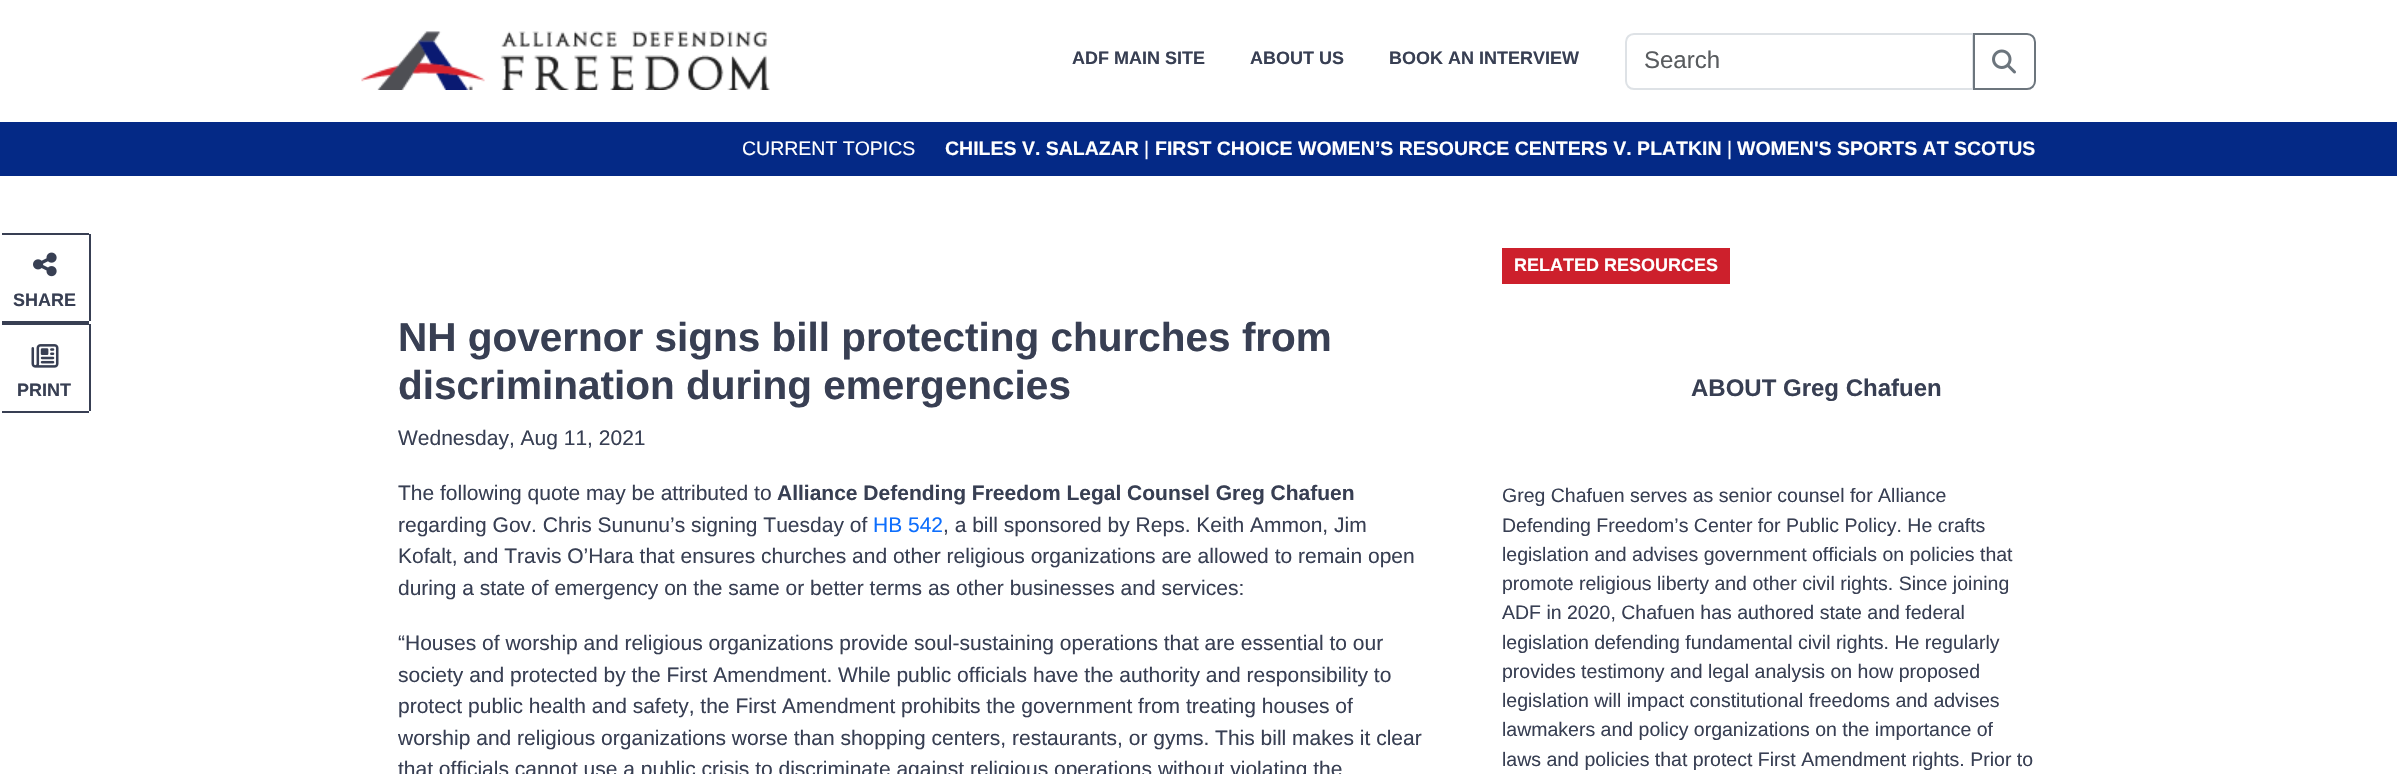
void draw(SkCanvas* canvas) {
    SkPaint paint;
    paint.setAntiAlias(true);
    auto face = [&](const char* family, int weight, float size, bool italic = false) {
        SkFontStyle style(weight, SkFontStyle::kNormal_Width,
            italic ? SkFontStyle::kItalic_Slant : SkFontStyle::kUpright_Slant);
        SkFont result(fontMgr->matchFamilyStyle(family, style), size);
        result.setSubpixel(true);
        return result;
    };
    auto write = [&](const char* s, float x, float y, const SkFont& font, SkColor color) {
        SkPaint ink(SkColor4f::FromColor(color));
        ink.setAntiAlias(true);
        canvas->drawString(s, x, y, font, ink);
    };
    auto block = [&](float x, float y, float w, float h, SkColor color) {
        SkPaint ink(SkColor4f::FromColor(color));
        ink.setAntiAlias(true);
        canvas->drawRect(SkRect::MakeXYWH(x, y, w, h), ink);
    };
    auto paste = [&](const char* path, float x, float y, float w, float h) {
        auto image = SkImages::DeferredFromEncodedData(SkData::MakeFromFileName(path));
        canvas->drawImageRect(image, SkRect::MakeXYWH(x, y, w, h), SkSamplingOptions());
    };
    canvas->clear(SK_ColorWHITE);
    paste("pic1.png", 361, 31, 409, 59);
    auto kFont1 = face("Liberation Sans", 700, 18);
    write("ADF MAIN SITE", 1072, 64, kFont1, SkColorSetRGB(56, 63, 83));
    write("ABOUT US", 1250, 64, kFont1, SkColorSetRGB(56, 63, 83));
    write("BOOK AN INTERVIEW", 1389, 64, kFont1, SkColorSetRGB(56, 63, 83));
    paint.setStyle(SkPaint::kStroke_Style);
    paint.setStrokeWidth(2);
    paint.setColor(SkColorSetRGB(222, 226, 230));
    canvas->drawPath(SkPathBuilder().moveTo(1634, 34).lineTo(1973, 34).lineTo(1973, 89).lineTo(1634, 89).cubicTo(1629.5f, 89, 1626, 85.5f, 1626, 81).lineTo(1626, 42).cubicTo(1626, 37.5f, 1629.5f, 34, 1634, 34).close().detach(), paint);
    auto kFont2 = face("Liberation Sans", 400, 24);
    write("Search", 1644, 68, kFont2, SkColorSetRGB(89, 92, 95));
    paint.setColor(SkColorSetRGB(108, 117, 125));
    canvas->drawPath(SkPathBuilder().moveTo(1974, 34).lineTo(2027, 34).cubicTo(2031.5f, 34, 2035, 37.5f, 2035, 42).lineTo(2035, 81).cubicTo(2035, 85.5f, 2031.5f, 89, 2027, 89).lineTo(1974, 89).close().detach(), paint);
    paste("pic2.png", 1992, 49, 24, 25);
    block(0, 122, 2397, 54, SkColorSetRGB(4, 41, 134));
    auto kFont3 = face("Liberation Sans", 400, 19.5f);
    write("CURRENT TOPICS", 742, 155, kFont3, SK_ColorWHITE);
    auto kFont4 = face("Liberation Sans", 700, 19.5f);
    write("CHILES V. SALAZAR", 945, 155, kFont4, SK_ColorWHITE);
    write("|", 1144, 155, kFont3, SK_ColorWHITE);
    write("FIRST CHOICE WOMEN’S RESOURCE CENTERS V. PLATKIN", 1155, 155, kFont4, SK_ColorWHITE);
    write("|", 1727, 155, kFont3, SK_ColorWHITE);
    write("WOMEN'S SPORTS AT SCOTUS", 1737, 155, kFont4, SK_ColorWHITE);
    block(2, 233, 87, 2, SkColorSetRGB(56, 63, 83));
    block(89, 234, 2, 87, SkColorSetRGB(56, 63, 83));
    block(2, 321, 87, 4, SkColorSetRGB(56, 63, 83));
    paste("pic3.png", 33, 252, 24, 25);
    write("SHARE", 13, 306, kFont1, SkColorSetRGB(56, 63, 83));
    auto kFont5 = face("Liberation Sans", 700, 40.5f);
    write("NH governor signs bill protecting churches from", 398, 351, kFont5, SkColorSetRGB(56, 63, 83));
    write("discrimination during emergencies", 398, 399, kFont5, SkColorSetRGB(56, 63, 83));
    auto kFont6 = face("Liberation Sans", 400, 21);
    write("Wednesday, Aug 11, 2021", 398, 445, kFont6, SkColorSetRGB(56, 63, 83));
    write("The following quote may be attributed to", 398, 500, kFont6, SkColorSetRGB(56, 63, 83));
    auto kFont7 = face("Liberation Sans", 700, 21);
    write("Alliance Defending Freedom Legal Counsel Greg Chafuen", 777, 500, kFont7, SkColorSetRGB(56, 63, 83));
    write("regarding Gov. Chris Sununu’s signing Tuesday of", 398, 532, kFont6, SkColorSetRGB(56, 63, 83));
    write("HB 542", 873, 532, kFont6, SkColorSetRGB(13, 110, 253));
    write(", a bill sponsored by Reps. Keith Ammon, Jim", 943, 532, kFont6, SkColorSetRGB(56, 63, 83));
    write("Kofalt, and Travis O’Hara that ensures churches and other religious organizations are allowed to remain open", 398, 563, kFont6, SkColorSetRGB(56, 63, 83));
    write("during a state of emergency on the same or better terms as other businesses and services:", 398, 595, kFont6, SkColorSetRGB(56, 63, 83));
    write("“Houses of worship and religious organizations provide soul-sustaining operations that are essential to our", 398, 650, kFont6, SkColorSetRGB(56, 63, 83));
    write("society and protected by the First Amendment. While public officials have the authority and responsibility to", 398, 682, kFont6, SkColorSetRGB(56, 63, 83));
    write("protect public health and safety, the First Amendment prohibits the government from treating houses of", 398, 713, kFont6, SkColorSetRGB(56, 63, 83));
    write("worship and religious organizations worse than shopping centers, restaurants, or gyms. This bill makes it clear", 398, 745, kFont6, SkColorSetRGB(56, 63, 83));
    write("that officials cannot use a public crisis to discriminate against religious operations without violating the", 398, 776, kFont6, SkColorSetRGB(56, 63, 83));
    block(1502, 248, 228, 36, SkColorSetRGB(205, 32, 44));
    write("RELATED RESOURCES", 1514, 271, kFont1, SK_ColorWHITE);
    auto kFont8 = face("Liberation Sans", 700, 24);
    write("ABOUT Greg Chafuen", 1691, 396, kFont8, SkColorSetRGB(56, 63, 83));
    write("Greg Chafuen serves as senior counsel for Alliance", 1502, 502, kFont3, SkColorSetRGB(56, 63, 83));
    write("Defending Freedom’s Center for Public Policy. He crafts", 1502, 532, kFont3, SkColorSetRGB(56, 63, 83));
    write("legislation and advises government officials on policies that", 1502, 561, kFont3, SkColorSetRGB(56, 63, 83));
    write("promote religious liberty and other civil rights. Since joining", 1502, 590, kFont3, SkColorSetRGB(56, 63, 83));
    write("ADF in 2020, Chafuen has authored state and federal", 1502, 619, kFont3, SkColorSetRGB(56, 63, 83));
    write("legislation defending fundamental civil rights. He regularly", 1502, 649, kFont3, SkColorSetRGB(56, 63, 83));
    write("provides testimony and legal analysis on how proposed", 1502, 678, kFont3, SkColorSetRGB(56, 63, 83));
    write("legislation will impact constitutional freedoms and advises", 1502, 707, kFont3, SkColorSetRGB(56, 63, 83));
    write("lawmakers and policy organizations on the importance of", 1502, 736, kFont3, SkColorSetRGB(56, 63, 83));
    write("laws and policies that protect First Amendment rights. Prior to", 1502, 766, kFont3, SkColorSetRGB(56, 63, 83));
    block(89, 324, 2, 87, SkColorSetRGB(56, 63, 83));
    block(2, 411, 87, 2, SkColorSetRGB(56, 63, 83));
    paste("pic4.png", 31, 344, 28, 24);
    write("PRINT", 17, 396, kFont1, SkColorSetRGB(56, 63, 83));
}
